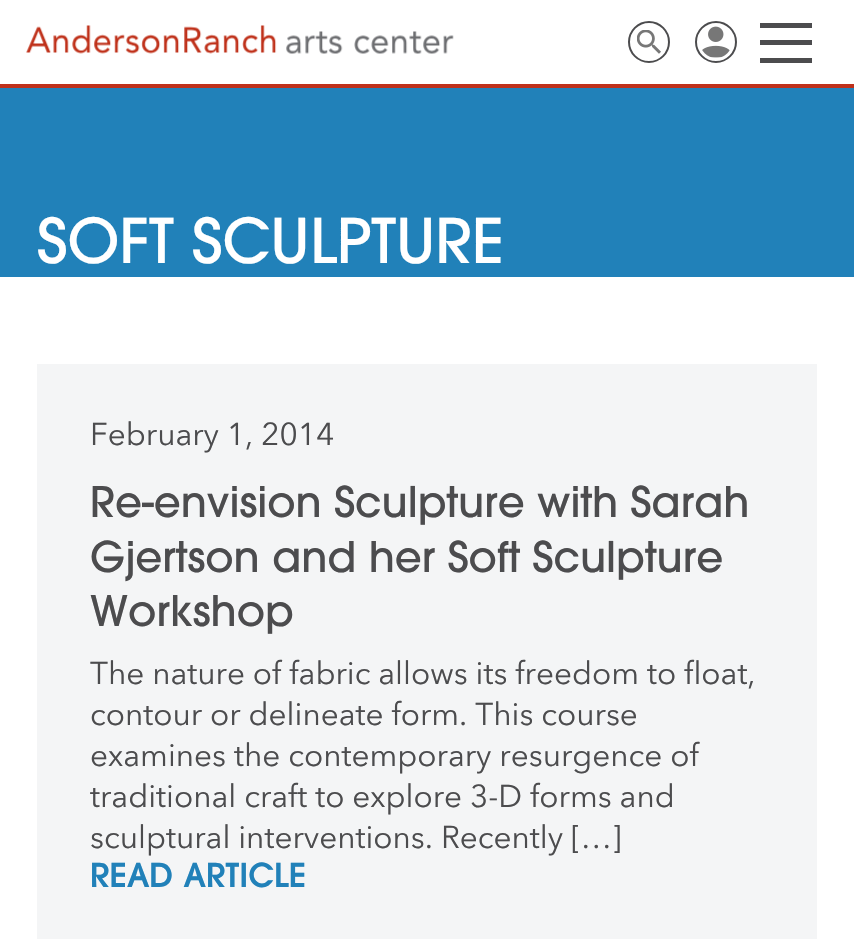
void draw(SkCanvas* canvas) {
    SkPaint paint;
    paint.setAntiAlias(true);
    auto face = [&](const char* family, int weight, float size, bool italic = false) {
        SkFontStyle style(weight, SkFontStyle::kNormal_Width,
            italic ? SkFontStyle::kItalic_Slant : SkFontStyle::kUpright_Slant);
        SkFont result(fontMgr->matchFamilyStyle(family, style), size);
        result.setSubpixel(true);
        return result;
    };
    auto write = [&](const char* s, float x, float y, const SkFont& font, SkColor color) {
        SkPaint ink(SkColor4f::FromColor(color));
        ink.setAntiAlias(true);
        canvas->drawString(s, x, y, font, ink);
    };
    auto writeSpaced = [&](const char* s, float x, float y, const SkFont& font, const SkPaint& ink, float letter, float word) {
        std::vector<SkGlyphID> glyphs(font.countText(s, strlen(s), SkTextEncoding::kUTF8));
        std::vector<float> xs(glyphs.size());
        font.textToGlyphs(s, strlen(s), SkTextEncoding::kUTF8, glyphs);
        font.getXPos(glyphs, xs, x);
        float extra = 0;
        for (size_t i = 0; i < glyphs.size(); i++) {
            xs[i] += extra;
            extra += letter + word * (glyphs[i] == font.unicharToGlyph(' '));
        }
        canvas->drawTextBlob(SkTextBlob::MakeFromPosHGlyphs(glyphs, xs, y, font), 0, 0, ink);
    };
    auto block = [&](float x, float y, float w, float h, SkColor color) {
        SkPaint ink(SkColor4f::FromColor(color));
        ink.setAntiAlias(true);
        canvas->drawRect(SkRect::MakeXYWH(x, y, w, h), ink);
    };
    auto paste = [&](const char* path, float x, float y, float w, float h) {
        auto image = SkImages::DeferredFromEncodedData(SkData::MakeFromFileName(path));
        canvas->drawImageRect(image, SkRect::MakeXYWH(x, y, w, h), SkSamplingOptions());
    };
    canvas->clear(SkColorSetRGB(33, 129, 185));
    block(0, 0, 854, 84, SK_ColorWHITE);
    block(0, 84, 854, 4, SkColorSetRGB(191, 49, 27));
    paste("pic1.png", 26, 25, 428, 29);
    paint.setStyle(SkPaint::kStroke_Style);
    paint.setStrokeWidth(2);
    paint.setColor(SkColorSetRGB(76, 76, 78));
    canvas->drawCircle(649, 42, 20, paint);
    paste("pic2.png", 637, 30, 24, 24);
    canvas->drawCircle(716, 42, 20, paint);
    paste("pic3.png", 702, 26, 28, 32);
    block(760, 40, 52, 5, SkColorSetRGB(76, 76, 78));
    block(760, 23, 52, 5, SkColorSetRGB(76, 76, 78));
    block(760, 58, 52, 5, SkColorSetRGB(76, 76, 78));
    auto kFont1 = face("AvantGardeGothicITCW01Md", 400, 61.25f);
    write("SOFT SCULPTURE", 37, 263, kFont1, SK_ColorWHITE);
    block(0, 277, 854, 662, SK_ColorWHITE);
    block(37, 364, 780, 575, SkColorSetRGB(244, 245, 246));
    auto kFont2 = face("Avenir Next", 400, 31.5f);
    write("February 1, 2014", 90, 445, kFont2, SkColorSetRGB(76, 76, 78));
    auto kFont3 = face("AvantGardeGothicITCW01Md", 400, 42);
    write("Re-envision Sculpture with Sarah", 90, 517, kFont3, SkColorSetRGB(76, 76, 78));
    write("Gjertson and her Soft Sculpture", 90, 572, kFont3, SkColorSetRGB(76, 76, 78));
    write("Workshop", 90, 626, kFont3, SkColorSetRGB(76, 76, 78));
    write("The nature of fabric allows its freedom to float,", 90, 684, kFont2, SkColorSetRGB(76, 76, 78));
    write("contour or delineate form. This course", 90, 725, kFont2, SkColorSetRGB(76, 76, 78));
    write("examines the contemporary resurgence of", 90, 766, kFont2, SkColorSetRGB(76, 76, 78));
    write("traditional craft to explore 3-D forms and", 90, 807, kFont2, SkColorSetRGB(76, 76, 78));
    write("sculptural interventions. Recently […]", 90, 848, kFont2, SkColorSetRGB(76, 76, 78));
    auto kFont4 = face("AvantGardeGothicITCW01Md", 700, 31.5f);
    paint.setStyle(SkPaint::kFill_Style);
    paint.setColor(SkColorSetRGB(33, 129, 185));
    writeSpaced("READ ARTICLE", 90, 887, kFont4, paint, 0.9f, 0);
}
